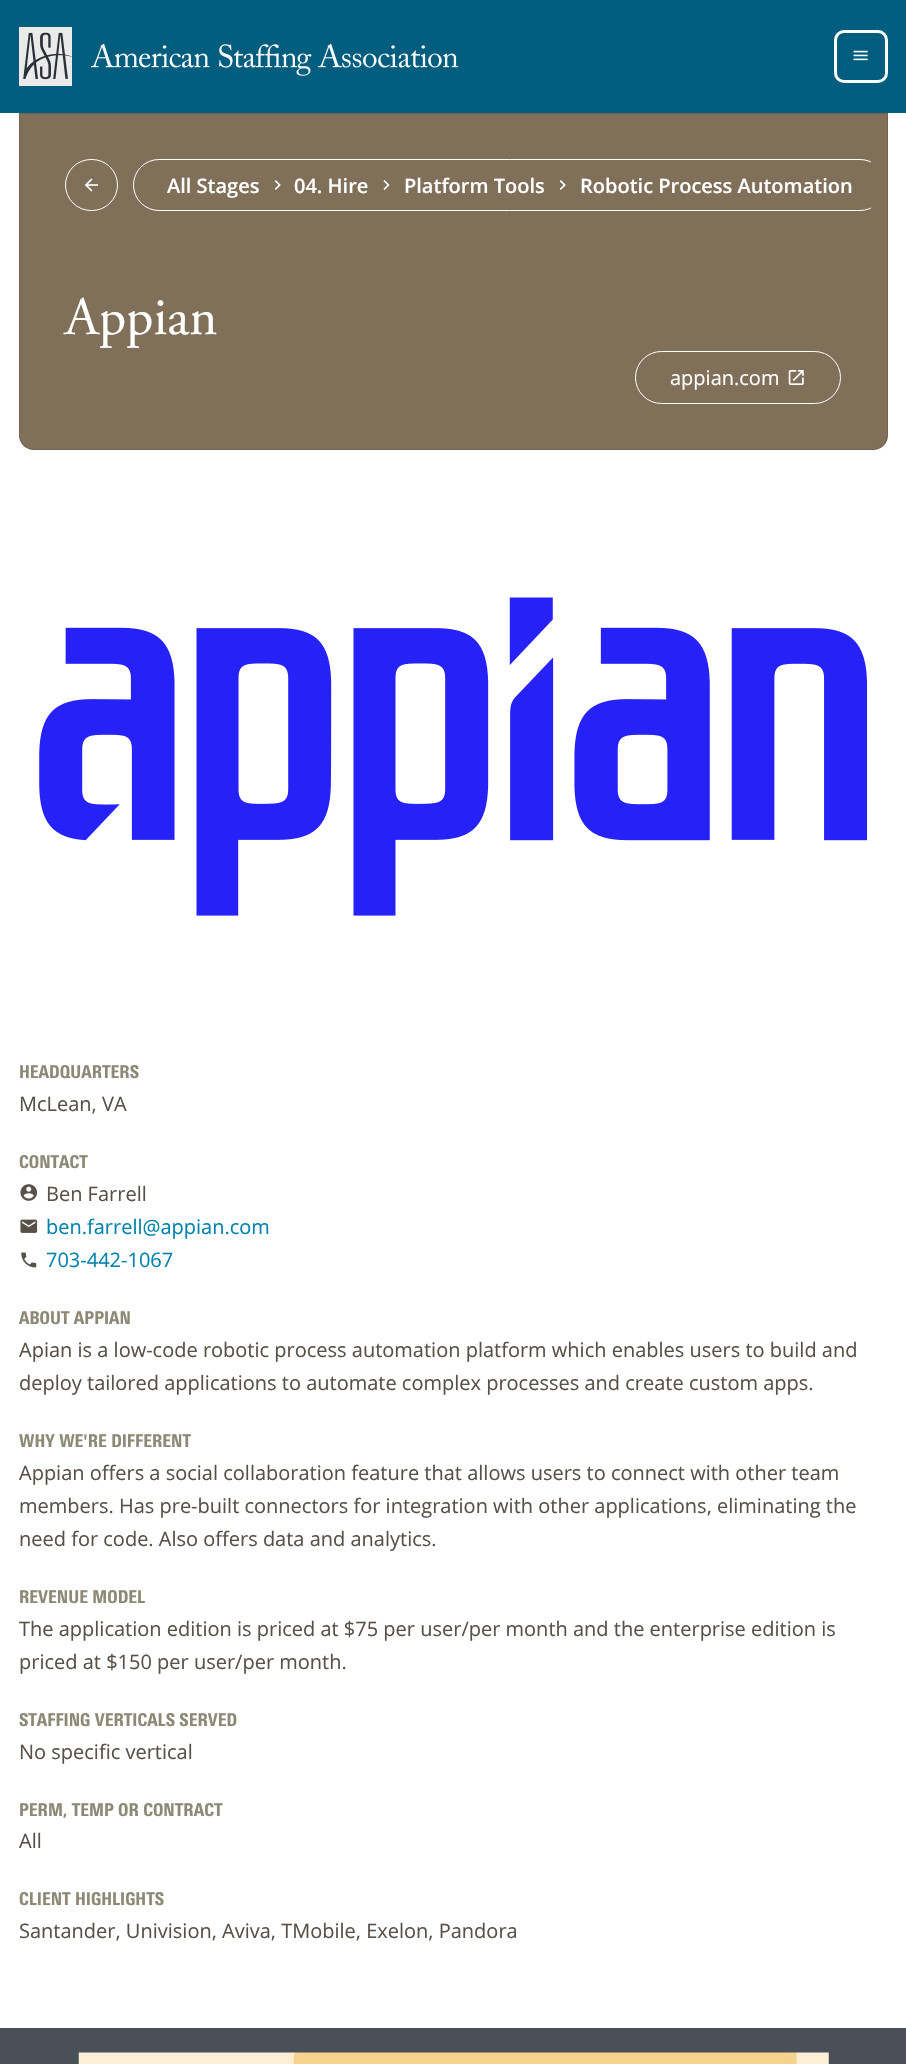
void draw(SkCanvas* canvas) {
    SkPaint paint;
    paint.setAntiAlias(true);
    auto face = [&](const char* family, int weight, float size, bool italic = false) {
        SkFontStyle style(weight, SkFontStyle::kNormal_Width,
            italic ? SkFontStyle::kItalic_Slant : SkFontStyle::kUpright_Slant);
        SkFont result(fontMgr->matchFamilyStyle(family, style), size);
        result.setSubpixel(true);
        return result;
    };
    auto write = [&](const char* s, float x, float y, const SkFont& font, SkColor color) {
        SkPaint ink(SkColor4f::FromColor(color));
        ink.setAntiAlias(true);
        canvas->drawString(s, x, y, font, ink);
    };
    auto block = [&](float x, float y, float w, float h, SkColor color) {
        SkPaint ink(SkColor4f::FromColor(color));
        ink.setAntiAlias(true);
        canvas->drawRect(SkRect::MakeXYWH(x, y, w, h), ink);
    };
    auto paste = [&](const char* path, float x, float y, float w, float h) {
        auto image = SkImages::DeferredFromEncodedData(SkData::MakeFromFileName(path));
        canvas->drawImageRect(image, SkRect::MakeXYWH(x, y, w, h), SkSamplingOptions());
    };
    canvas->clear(SK_ColorWHITE);
    block(0, 0, 906, 113, SkColorSetRGB(2, 93, 126));
    paste("pic1.png", 19, 27, 440, 59);
    paint.setStyle(SkPaint::kStroke_Style);
    paint.setStrokeWidth(3);
    paint.setColor(SK_ColorWHITE);
    canvas->drawRoundRect(SkRect::MakeXYWH(835.5f, 31.5f, 51, 50), 8.5f, 8.5f, paint);
    paste("pic2.png", 853, 50, 15, 11);
    paint.setStyle(SkPaint::kFill_Style);
    paint.setColor(SkColorSetRGB(128, 111, 89));
    canvas->drawPath(SkPathBuilder().moveTo(19, 113).lineTo(888, 113).lineTo(888, 435).cubicTo(888, 443.5f, 881.5f, 450, 873, 450).lineTo(34, 450).cubicTo(25.5f, 450, 19, 443.5f, 19, 435).close().detach(), paint);
    paint.setStyle(SkPaint::kStroke_Style);
    paint.setStrokeWidth(1);
    paint.setColor(SkColorSetARGB(31, 0, 0, 0));
    canvas->drawPath(SkPathBuilder().moveTo(19.5f, 113.5f).lineTo(887.5f, 113.5f).lineTo(887.5f, 435).cubicTo(887.5f, 443, 881, 449.5f, 873, 449.5f).lineTo(34, 449.5f).cubicTo(26, 449.5f, 19.5f, 443, 19.5f, 435).close().detach(), paint);
    paint.setColor(SK_ColorWHITE);
    canvas->drawRoundRect(SkRect::MakeXYWH(65.5f, 159.5f, 52, 51), 25.5f, 25.5f, paint);
    paste("pic3.png", 84, 178, 14, 14);
    canvas->save();
    canvas->clipRect(SkRect::MakeXYWH(35, 159, 836, 67));
    canvas->drawRoundRect(SkRect::MakeXYWH(133.5f, 159.5f, 752, 51), 25.5f, 25.5f, paint);
    canvas->restore();
    auto kFont1 = face("Open Sans", 600, 20);
    write("All Stages", 167, 193, kFont1, SK_ColorWHITE);
    paste("pic4.png", 274, 180, 7, 10);
    write("04. Hire", 294, 193, kFont1, SK_ColorWHITE);
    paste("pic5.png", 383, 180, 7, 10);
    write("Platform Tools", 404, 193, kFont1, SK_ColorWHITE);
    paste("pic4.png", 559, 180, 7, 10);
    write("Robotic Process Automation", 580, 193, kFont1, SK_ColorWHITE);
    auto kFont2 = face("Adobe Garamond", 400, 54);
    write("Appian", 65, 334, kFont2, SK_ColorWHITE);
    canvas->drawRoundRect(SkRect::MakeXYWH(635.5f, 351.5f, 205, 52), 26, 26, paint);
    auto kFont3 = face("Open Sans", 400, 20);
    write("appian.com", 670, 385, kFont3, SK_ColorWHITE);
    paste("pic6.png", 788, 370, 16, 15);
    paste("pic7.png", 39, 597, 829, 319);
    auto kFont4 = face("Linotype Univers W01", 900, 17.5f);
    write("HEADQUARTERS", 19, 1078, kFont4, SkColorSetRGB(140, 138, 118));
    write("McLean, VA", 19, 1111, kFont3, SkColorSetRGB(88, 81, 73));
    write("CONTACT", 19, 1168, kFont4, SkColorSetRGB(140, 138, 118));
    paste("pic8.png", 20, 1184, 18, 17);
    write("Ben Farrell", 46, 1201, kFont3, SkColorSetRGB(88, 81, 73));
    paste("pic9.png", 20, 1219, 18, 14);
    write("ben.farrell@appian.com", 46, 1234, kFont3, SkColorSetRGB(0, 130, 173));
    paste("pic10.png", 21, 1252, 16, 16);
    write("703-442-1067", 46, 1267, kFont3, SkColorSetRGB(0, 130, 173));
    write("ABOUT APPIAN", 19, 1324, kFont4, SkColorSetRGB(140, 138, 118));
    write("Apian is a low-code robotic process automation platform which enables users to build and", 19, 1357, kFont3, SkColorSetRGB(88, 81, 73));
    write("deploy tailored applications to automate complex processes and create custom apps.", 19, 1390, kFont3, SkColorSetRGB(88, 81, 73));
    write("WHY WE'RE DIFFERENT", 19, 1447, kFont4, SkColorSetRGB(140, 138, 118));
    write("Appian offers a social collaboration feature that allows users to connect with other team", 19, 1480, kFont3, SkColorSetRGB(88, 81, 73));
    write("members. Has pre-built connectors for integration with other applications, eliminating the", 19, 1513, kFont3, SkColorSetRGB(88, 81, 73));
    write("need for code. Also offers data and analytics.", 19, 1546, kFont3, SkColorSetRGB(88, 81, 73));
    write("REVENUE MODEL", 19, 1603, kFont4, SkColorSetRGB(140, 138, 118));
    write("The application edition is priced at $75 per user/per month and the enterprise edition is", 19, 1636, kFont3, SkColorSetRGB(88, 81, 73));
    write("priced at $150 per user/per month.", 19, 1669, kFont3, SkColorSetRGB(88, 81, 73));
    write("STAFFING VERTICALS SERVED", 19, 1726, kFont4, SkColorSetRGB(140, 138, 118));
    write("No specific vertical", 19, 1759, kFont3, SkColorSetRGB(88, 81, 73));
    write("PERM, TEMP OR CONTRACT", 19, 1816, kFont4, SkColorSetRGB(140, 138, 118));
    write("All", 19, 1848, kFont3, SkColorSetRGB(88, 81, 73));
    write("CLIENT HIGHLIGHTS", 19, 1905, kFont4, SkColorSetRGB(140, 138, 118));
    write("Santander, Univision, Aviva, TMobile, Exelon, Pandora", 19, 1938, kFont3, SkColorSetRGB(88, 81, 73));
    block(0, 2028, 906, 36, SkColorSetRGB(73, 80, 87));
    paste("pic11.png", 78, 2052, 751, 12);
}
